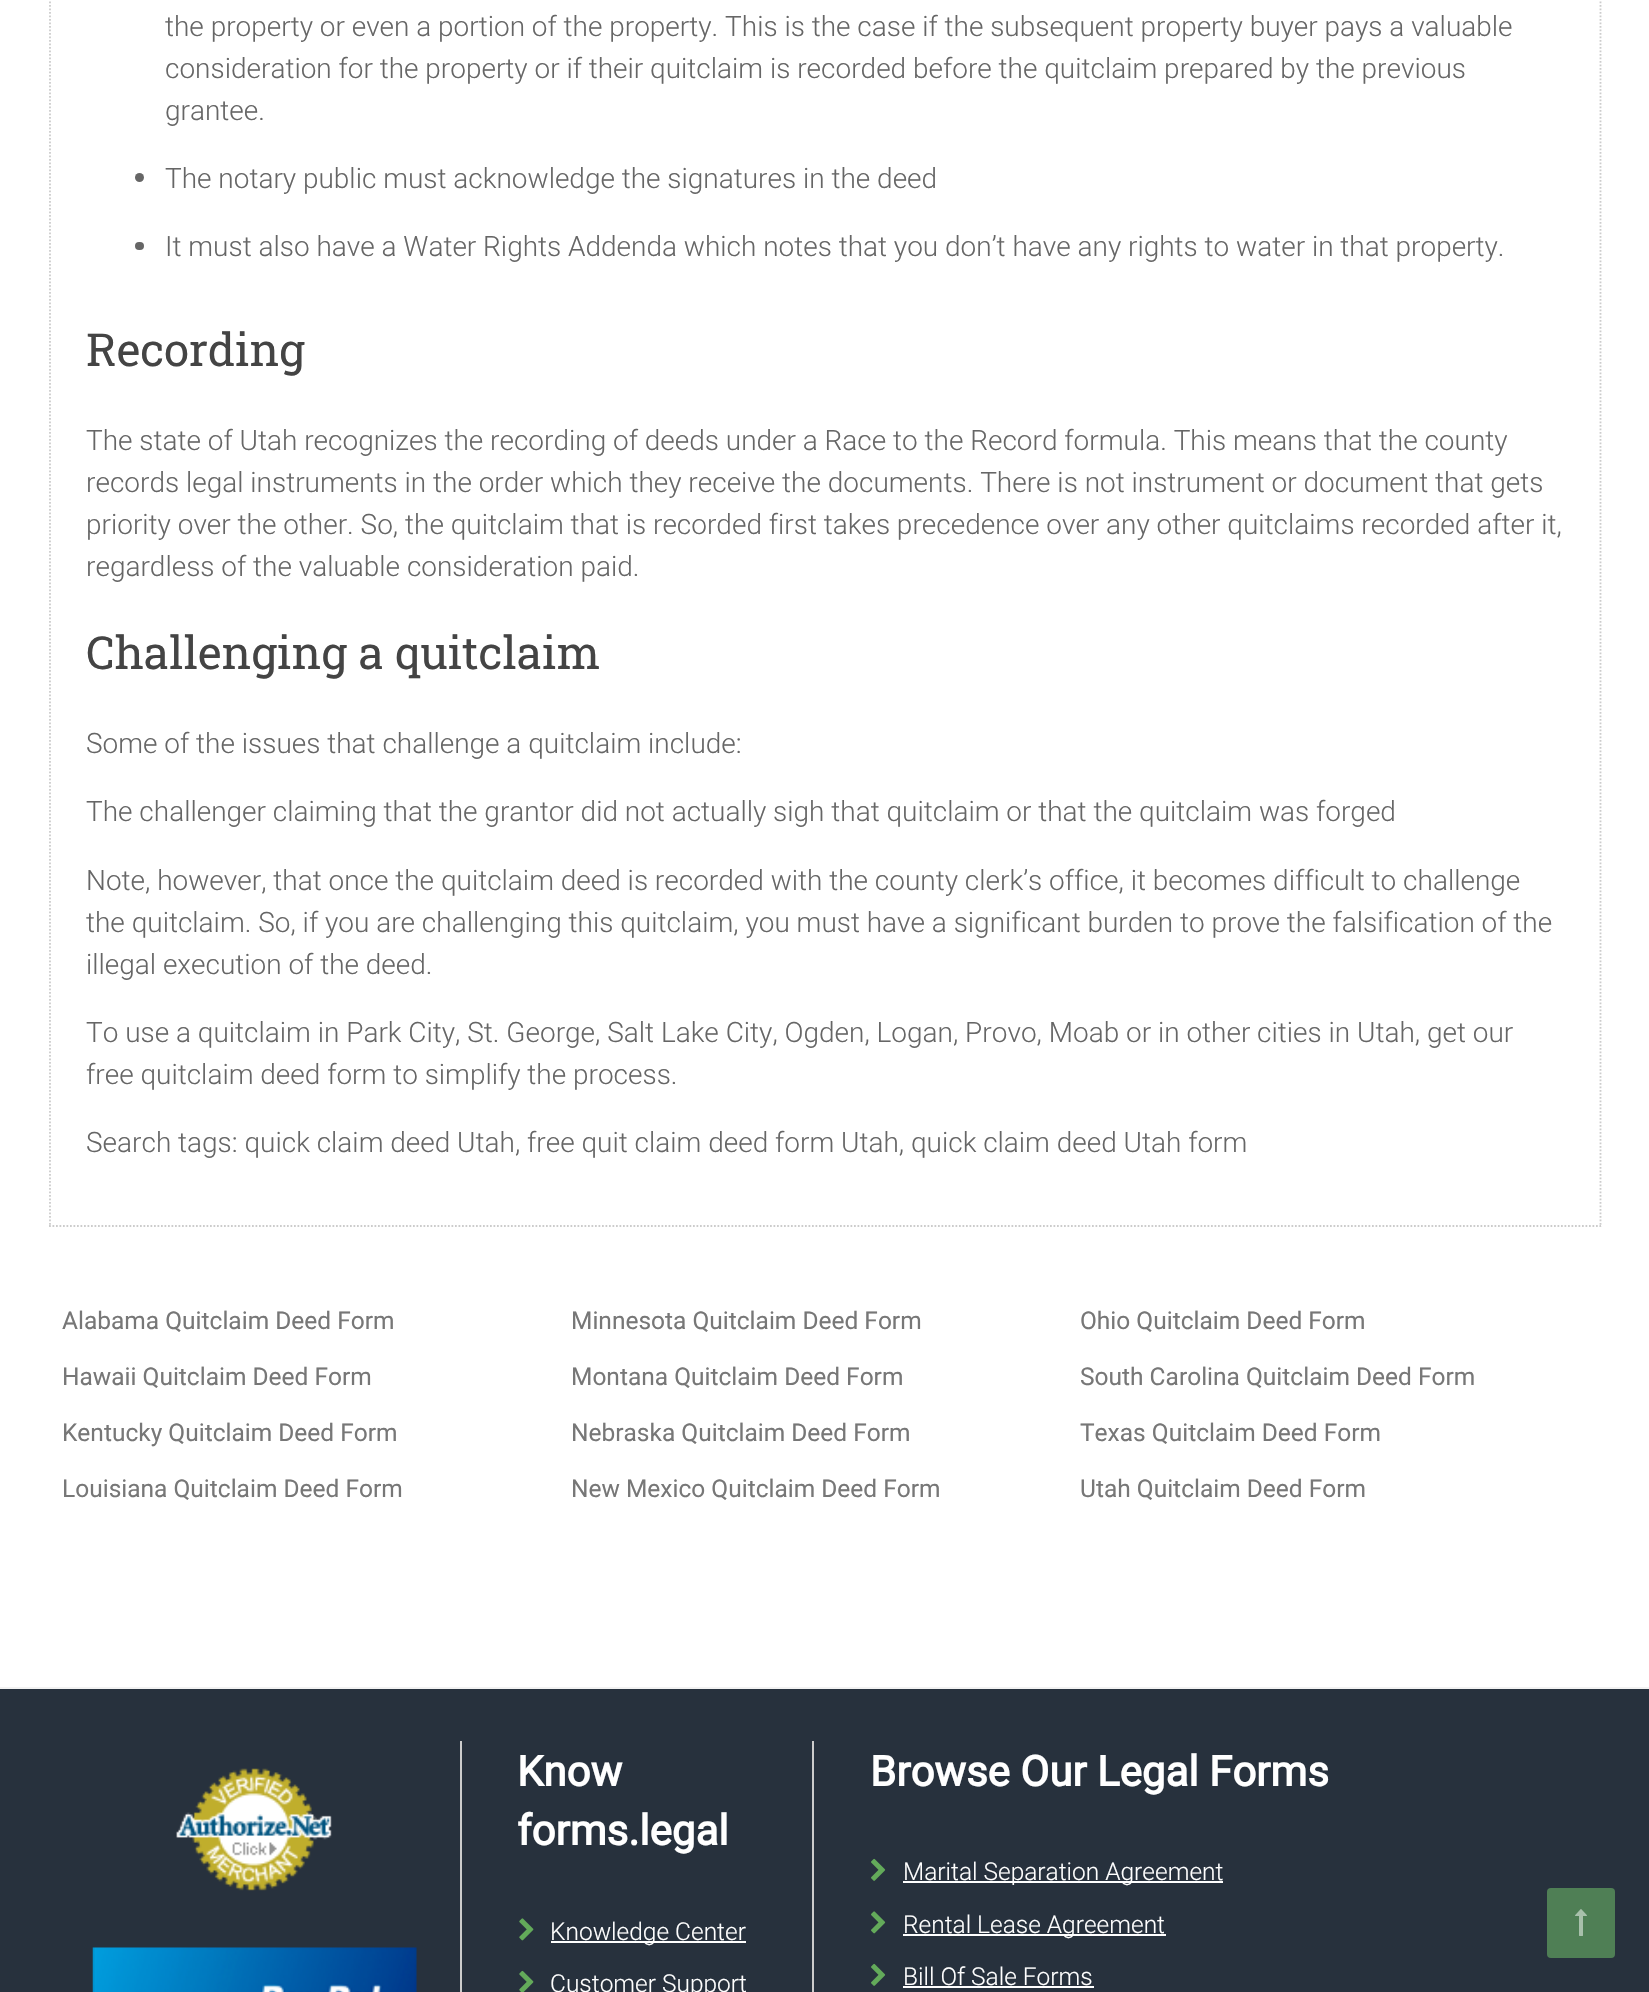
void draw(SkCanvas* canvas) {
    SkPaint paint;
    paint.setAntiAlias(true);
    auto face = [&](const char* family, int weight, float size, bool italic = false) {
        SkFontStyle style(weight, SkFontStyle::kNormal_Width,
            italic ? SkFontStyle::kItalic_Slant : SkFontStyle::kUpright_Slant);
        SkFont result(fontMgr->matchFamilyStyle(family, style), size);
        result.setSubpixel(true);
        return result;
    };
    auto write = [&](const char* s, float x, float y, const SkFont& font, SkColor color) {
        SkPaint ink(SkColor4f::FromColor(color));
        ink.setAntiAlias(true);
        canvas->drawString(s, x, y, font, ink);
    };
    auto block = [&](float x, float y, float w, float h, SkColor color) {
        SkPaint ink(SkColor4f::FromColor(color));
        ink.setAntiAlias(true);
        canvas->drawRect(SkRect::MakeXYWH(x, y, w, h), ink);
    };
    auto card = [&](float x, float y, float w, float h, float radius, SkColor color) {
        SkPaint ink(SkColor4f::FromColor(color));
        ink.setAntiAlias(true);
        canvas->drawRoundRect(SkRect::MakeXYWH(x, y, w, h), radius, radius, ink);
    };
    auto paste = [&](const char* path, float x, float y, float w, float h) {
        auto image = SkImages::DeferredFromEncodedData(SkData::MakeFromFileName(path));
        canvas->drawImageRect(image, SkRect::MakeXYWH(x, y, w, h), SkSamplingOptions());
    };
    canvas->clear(SK_ColorWHITE);
    paint.setStyle(SkPaint::kStroke_Style);
    paint.setStrokeWidth(1.8f);
    paint.setColor(SkColorSetRGB(204, 204, 204));
    paint.setPathEffect(SkDashPathEffect::Make({{1.75f, 1.75f}}, 0));
    canvas->drawPath(SkPathBuilder().moveTo(1600.5f, -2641).lineTo(1600.5f, 1227).detach(), paint);
    paint.setPathEffect(nullptr);
    paint.setPathEffect(SkDashPathEffect::Make({{1.75f, 1.75f}}, 0));
    canvas->drawPath(SkPathBuilder().moveTo(49, 1226).lineTo(1601, 1226).detach(), paint);
    paint.setPathEffect(nullptr);
    paint.setPathEffect(SkDashPathEffect::Make({{1.75f, 1.75f}}, 0));
    canvas->drawPath(SkPathBuilder().moveTo(50, -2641).lineTo(50, 1227).detach(), paint);
    paint.setPathEffect(nullptr);
    auto kFont1 = face("Roboto", 300, 28);
    write("the property or even a portion of the property. This is the case if the subsequent property buyer pays a valuable", 165, 36, kFont1, SkColorSetRGB(102, 102, 102));
    write("consideration for the property or if their quitclaim is recorded before the quitclaim prepared by the previous", 165, 78, kFont1, SkColorSetRGB(102, 102, 102));
    write("grantee.", 165, 120, kFont1, SkColorSetRGB(102, 102, 102));
    paint.setStyle(SkPaint::kFill_Style);
    paint.setColor(SkColorSetRGB(102, 102, 102));
    canvas->drawCircle(139.5f, 177.5f, 4.5f, paint);
    write("The notary public must acknowledge the signatures in the deed", 165, 188, kFont1, SkColorSetRGB(102, 102, 102));
    card(135, 242, 9, 8, 4, SkColorSetRGB(102, 102, 102));
    write("It must also have a Water Rights Addenda which notes that you don’t have any rights to water in that property.", 165, 256, kFont1, SkColorSetRGB(102, 102, 102));
    auto kFont2 = face("Roboto Slab", 400, 45.5f);
    write("Recording", 86, 366, kFont2, SkColorSetRGB(68, 68, 68));
    write("The state of Utah recognizes the recording of deeds under a Race to the Record formula. This means that the county", 86, 450, kFont1, SkColorSetRGB(102, 102, 102));
    write("records legal instruments in the order which they receive the documents. There is not instrument or document that gets", 86, 492, kFont1, SkColorSetRGB(102, 102, 102));
    write("priority over the other. So, the quitclaim that is recorded first takes precedence over any other quitclaims recorded after it,", 86, 534, kFont1, SkColorSetRGB(102, 102, 102));
    write("regardless of the valuable consideration paid.", 86, 576, kFont1, SkColorSetRGB(102, 102, 102));
    write("Challenging a quitclaim", 86, 669, kFont2, SkColorSetRGB(68, 68, 68));
    write("Some of the issues that challenge a quitclaim include:", 86, 753, kFont1, SkColorSetRGB(102, 102, 102));
    write("The challenger claiming that the grantor did not actually sigh that quitclaim or that the quitclaim was forged", 86, 821, kFont1, SkColorSetRGB(102, 102, 102));
    write("Note, however, that once the quitclaim deed is recorded with the county clerk’s office, it becomes difficult to challenge", 86, 890, kFont1, SkColorSetRGB(102, 102, 102));
    write("the quitclaim. So, if you are challenging this quitclaim, you must have a significant burden to prove the falsification of the", 86, 932, kFont1, SkColorSetRGB(102, 102, 102));
    write("illegal execution of the deed.", 86, 974, kFont1, SkColorSetRGB(102, 102, 102));
    write("To use a quitclaim in Park City, St. George, Salt Lake City, Ogden, Logan, Provo, Moab or in other cities in Utah, get our", 86, 1042, kFont1, SkColorSetRGB(102, 102, 102));
    write("free quitclaim deed form to simplify the process.", 86, 1084, kFont1, SkColorSetRGB(102, 102, 102));
    write("Search tags: quick claim deed Utah, free quit claim deed form Utah, quick claim deed Utah form", 86, 1152, kFont1, SkColorSetRGB(102, 102, 102));
    auto kFont3 = face("Roboto", 400, 24.5f);
    write("Alabama Quitclaim Deed Form", 62, 1329, kFont3, SkColorSetRGB(119, 119, 119));
    write("Hawaii Quitclaim Deed Form", 62, 1385, kFont3, SkColorSetRGB(119, 119, 119));
    write("Kentucky Quitclaim Deed Form", 62, 1441, kFont3, SkColorSetRGB(119, 119, 119));
    write("Louisiana Quitclaim Deed Form", 62, 1497, kFont3, SkColorSetRGB(119, 119, 119));
    write("Minnesota Quitclaim Deed Form", 571, 1329, kFont3, SkColorSetRGB(119, 119, 119));
    write("Montana Quitclaim Deed Form", 571, 1385, kFont3, SkColorSetRGB(119, 119, 119));
    write("Nebraska Quitclaim Deed Form", 571, 1441, kFont3, SkColorSetRGB(119, 119, 119));
    write("New Mexico Quitclaim Deed Form", 571, 1497, kFont3, SkColorSetRGB(119, 119, 119));
    write("Ohio Quitclaim Deed Form", 1080, 1329, kFont3, SkColorSetRGB(119, 119, 119));
    write("South Carolina Quitclaim Deed Form", 1080, 1385, kFont3, SkColorSetRGB(119, 119, 119));
    write("Texas Quitclaim Deed Form", 1080, 1441, kFont3, SkColorSetRGB(119, 119, 119));
    write("Utah Quitclaim Deed Form", 1080, 1497, kFont3, SkColorSetRGB(119, 119, 119));
    block(0, 1689, 1649, 303, SkColorSetRGB(39, 49, 61));
    block(0, 1687, 1649, 2, SkColorSetRGB(242, 242, 242));
    paste("pic1.png", 176, 1768, 156, 123);
    paste("pic2.png", 92, 1947, 325, 45);
    block(460, 1741, 2, 251, SkColorSetRGB(204, 204, 204));
    auto kFont4 = face("Roboto", 700, 42);
    write("Know", 517, 1786, kFont4, SK_ColorWHITE);
    write("forms.legal", 517, 1845, kFont4, SK_ColorWHITE);
    paste("pic3.png", 519, 1918, 15, 23);
    block(551, 1941, 195, 2, SK_ColorWHITE);
    auto kFont5 = face("Roboto", 300, 24.5f);
    write("Knowledge Center", 550, 1940, kFont5, SK_ColorWHITE);
    paste("pic4.png", 519, 1970, 15, 22);
    write("Customer Support", 550, 1992, kFont5, SK_ColorWHITE);
    block(812, 1741, 2, 251, SkColorSetRGB(204, 204, 204));
    write("Browse Our Legal Forms", 870, 1786, kFont4, SK_ColorWHITE);
    paste("pic5.png", 871, 1858, 15, 23);
    block(903, 1881, 320, 2, SK_ColorWHITE);
    write("Marital Separation Agreement", 903, 1880, kFont5, SK_ColorWHITE);
    paste("pic6.png", 871, 1911, 15, 23);
    block(903, 1934, 263, 2, SK_ColorWHITE);
    write("Rental Lease Agreement", 903, 1933, kFont5, SK_ColorWHITE);
    paste("pic5.png", 871, 1963, 15, 23);
    write("Bill Of Sale Forms", 903, 1985, kFont5, SK_ColorWHITE);
    block(903, 1986, 191, 2, SK_ColorWHITE);
    card(1547, 1888, 68, 70, 4, SkColorSetRGB(79, 127, 85));
    paste("pic7.png", 1575, 1909, 12, 27);
}
